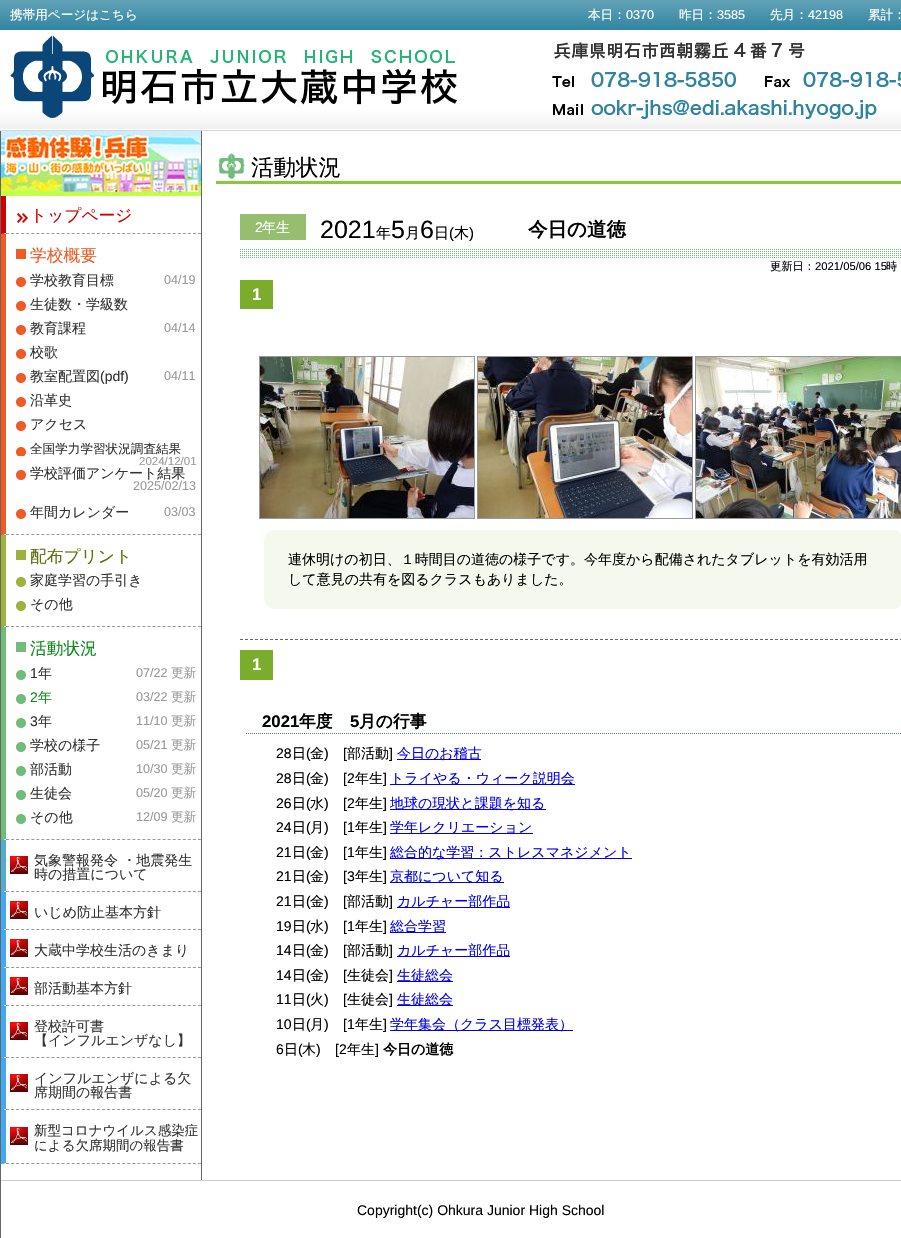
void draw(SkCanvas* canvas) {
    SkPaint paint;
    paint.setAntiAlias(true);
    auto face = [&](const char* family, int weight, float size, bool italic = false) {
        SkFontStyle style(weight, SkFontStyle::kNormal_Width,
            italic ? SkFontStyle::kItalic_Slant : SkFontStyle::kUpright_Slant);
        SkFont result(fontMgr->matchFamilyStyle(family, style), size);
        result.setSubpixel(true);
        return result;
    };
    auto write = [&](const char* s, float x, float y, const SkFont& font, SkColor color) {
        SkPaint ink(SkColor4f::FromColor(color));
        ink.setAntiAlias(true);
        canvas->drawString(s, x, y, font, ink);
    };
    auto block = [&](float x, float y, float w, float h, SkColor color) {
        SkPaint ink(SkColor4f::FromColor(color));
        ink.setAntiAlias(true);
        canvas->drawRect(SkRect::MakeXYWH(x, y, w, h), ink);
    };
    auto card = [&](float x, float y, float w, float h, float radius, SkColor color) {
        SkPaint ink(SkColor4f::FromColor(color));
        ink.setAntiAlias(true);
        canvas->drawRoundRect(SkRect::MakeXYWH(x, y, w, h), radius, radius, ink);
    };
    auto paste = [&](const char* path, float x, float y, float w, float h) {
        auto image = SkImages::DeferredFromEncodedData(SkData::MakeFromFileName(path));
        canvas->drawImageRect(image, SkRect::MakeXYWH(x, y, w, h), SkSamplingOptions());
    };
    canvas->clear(SK_ColorWHITE);
    paste("pic1.png", 0, 130, 901, 1);
    paste("pic2.png", 0, 0, 901, 129);
    auto kFont1 = face("WenQuanYi Zen Hei", 500, 12.6f);
    write("携帯用ページはこちら", 10, 19, kFont1, SK_ColorWHITE);
    write("本日：", 588, 19, kFont1, SK_ColorWHITE);
    auto kFont2 = face("Liberation Sans", 400, 12.6f);
    write("0370", 626, 19, kFont2, SK_ColorWHITE);
    write("昨日：", 679, 19, kFont1, SK_ColorWHITE);
    write("3585", 717, 19, kFont2, SK_ColorWHITE);
    write("先月：", 770, 19, kFont1, SK_ColorWHITE);
    write("42198", 808, 19, kFont2, SK_ColorWHITE);
    write("累計：", 868, 19, kFont1, SK_ColorWHITE);
    paste("pic3.png", 10, 35, 447, 83);
    paste("pic4.png", 552, 42, 349, 77);
    block(201, 131, 1, 1049, SkColorSetRGB(102, 102, 102));
    block(0, 131, 1, 1107, SkColorSetRGB(102, 102, 102));
    paste("pic5.png", 1, 131, 200, 65);
    paint.setStyle(SkPaint::kStroke_Style);
    paint.setStrokeWidth(1);
    paint.setColor(SkColorSetRGB(153, 153, 153));
    paint.setPathEffect(SkDashPathEffect::Make({{3, 2.05f}}, 0));
    canvas->drawPath(SkPathBuilder().moveTo(1, 233.5f).lineTo(201, 233.5f).detach(), paint);
    paint.setPathEffect(nullptr);
    paint.setStyle(SkPaint::kFill_Style);
    paint.setColor(SkColorSetRGB(209, 0, 0));
    canvas->drawPath(SkPathBuilder().moveTo(1, 234).lineTo(1, 196).lineTo(6, 196).lineTo(6, 233).close().detach(), paint);
    paste("pic6.png", 17, 213, 11, 10);
    auto kFont3 = face("WenQuanYi Zen Hei", 500, 16.75f);
    write("トップページ", 30, 221, kFont3, SkColorSetRGB(209, 0, 0));
    paint.setStyle(SkPaint::kStroke_Style);
    paint.setColor(SkColorSetRGB(153, 153, 153));
    paint.setPathEffect(SkDashPathEffect::Make({{3, 2.05f}}, 0));
    canvas->drawPath(SkPathBuilder().moveTo(1, 534.5f).lineTo(201, 534.5f).detach(), paint);
    paint.setPathEffect(nullptr);
    paint.setStyle(SkPaint::kFill_Style);
    paint.setColor(SkColorSetRGB(241, 90, 36));
    canvas->drawPath(SkPathBuilder().moveTo(1, 535).lineTo(1, 234).lineTo(6, 234).lineTo(6, 534).close().detach(), paint);
    block(16, 249, 10, 10, SkColorSetRGB(241, 90, 36));
    write("学校概要", 30, 261, kFont3, SkColorSetRGB(241, 90, 36));
    paste("pic7.png", 16, 277, 10, 10);
    auto kFont4 = face("WenQuanYi Zen Hei", 500, 14);
    write("学校教育目標", 30, 285, kFont4, SkColorSetRGB(51, 51, 51));
    write("04/19", 164, 284, kFont2, SkColorSetRGB(153, 153, 153));
    paste("pic7.png", 16, 301, 10, 10);
    write("生徒数・学級数", 30, 309, kFont4, SkColorSetRGB(51, 51, 51));
    paste("pic7.png", 16, 325, 10, 10);
    write("教育課程", 30, 333, kFont4, SkColorSetRGB(51, 51, 51));
    write("04/14", 164, 332, kFont2, SkColorSetRGB(153, 153, 153));
    paste("pic7.png", 16, 349, 10, 10);
    write("校歌", 30, 357, kFont4, SkColorSetRGB(51, 51, 51));
    paste("pic7.png", 16, 373, 10, 10);
    write("教室配置図", 30, 381, kFont4, SkColorSetRGB(51, 51, 51));
    auto kFont5 = face("Liberation Sans", 400, 14);
    write("(pdf)", 100, 381, kFont5, SkColorSetRGB(51, 51, 51));
    write("04/11", 164, 380, kFont2, SkColorSetRGB(153, 153, 153));
    paste("pic7.png", 16, 397, 10, 10);
    write("沿革史", 30, 405, kFont4, SkColorSetRGB(51, 51, 51));
    paste("pic7.png", 16, 421, 10, 10);
    write("アクセス", 30, 429, kFont4, SkColorSetRGB(51, 51, 51));
    paste("pic8.png", 16, 447, 10, 9);
    write("全国学力学習状況調査結果", 30, 453, kFont1, SkColorSetRGB(51, 51, 51));
    auto kFont6 = face("Liberation Sans", 400, 11.5f);
    write("2024/12/01", 139, 465, kFont6, SkColorSetRGB(153, 153, 153));
    paste("pic7.png", 16, 470, 10, 10);
    write("学校評価アンケート結果", 30, 478, kFont4, SkColorSetRGB(51, 51, 51));
    write("2025/02/13", 133, 490, kFont2, SkColorSetRGB(153, 153, 153));
    paste("pic7.png", 16, 509, 10, 10);
    write("年間カレンダー", 30, 517, kFont4, SkColorSetRGB(51, 51, 51));
    write("03/03", 164, 516, kFont2, SkColorSetRGB(153, 153, 153));
    paint.setStyle(SkPaint::kStroke_Style);
    paint.setColor(SkColorSetRGB(153, 153, 153));
    paint.setPathEffect(SkDashPathEffect::Make({{3, 2.05f}}, 0));
    canvas->drawPath(SkPathBuilder().moveTo(1, 626.5f).lineTo(201, 626.5f).detach(), paint);
    paint.setPathEffect(nullptr);
    paint.setStyle(SkPaint::kFill_Style);
    paint.setColor(SkColorSetRGB(158, 177, 61));
    canvas->drawPath(SkPathBuilder().moveTo(1, 627).lineTo(1, 535).lineTo(6, 535).lineTo(6, 626).close().detach(), paint);
    block(16, 550, 10, 10, SkColorSetRGB(158, 177, 61));
    write("配布プリント", 30, 562, kFont3, SkColorSetRGB(96, 109, 5));
    paste("pic9.png", 16, 577, 10, 10);
    write("家庭学習の手引き", 30, 585, kFont4, SkColorSetRGB(51, 51, 51));
    paste("pic9.png", 16, 601, 10, 10);
    write("その他", 30, 609, kFont4, SkColorSetRGB(51, 51, 51));
    paint.setStyle(SkPaint::kStroke_Style);
    paint.setColor(SkColorSetRGB(153, 153, 153));
    paint.setPathEffect(SkDashPathEffect::Make({{3, 2.05f}}, 0));
    canvas->drawPath(SkPathBuilder().moveTo(1, 839.5f).lineTo(201, 839.5f).detach(), paint);
    paint.setPathEffect(nullptr);
    paint.setStyle(SkPaint::kFill_Style);
    paint.setColor(SkColorSetRGB(113, 187, 124));
    canvas->drawPath(SkPathBuilder().moveTo(1, 840).lineTo(1, 627).lineTo(6, 627).lineTo(6, 839).close().detach(), paint);
    block(16, 642, 10, 10, SkColorSetRGB(113, 187, 124));
    write("活動状況", 30, 654, kFont3, SkColorSetRGB(14, 137, 28));
    paste("pic10.png", 16, 670, 10, 10);
    write("1", 30, 678, kFont5, SkColorSetRGB(51, 51, 51));
    write("年", 38, 678, kFont4, SkColorSetRGB(51, 51, 51));
    write("07/22", 136, 677, kFont2, SkColorSetRGB(153, 153, 153));
    write("更新", 171, 677, kFont1, SkColorSetRGB(153, 153, 153));
    paste("pic10.png", 16, 694, 10, 10);
    write("2", 30, 702, kFont5, SkColorSetRGB(14, 137, 28));
    write("年", 38, 702, kFont4, SkColorSetRGB(14, 137, 28));
    write("03/22", 136, 701, kFont2, SkColorSetRGB(153, 153, 153));
    write("更新", 171, 701, kFont1, SkColorSetRGB(153, 153, 153));
    paste("pic10.png", 16, 718, 10, 10);
    write("3", 30, 726, kFont5, SkColorSetRGB(51, 51, 51));
    write("年", 38, 726, kFont4, SkColorSetRGB(51, 51, 51));
    write("11/10", 136, 725, kFont2, SkColorSetRGB(153, 153, 153));
    write("更新", 171, 725, kFont1, SkColorSetRGB(153, 153, 153));
    paste("pic10.png", 16, 742, 10, 10);
    write("学校の様子", 30, 750, kFont4, SkColorSetRGB(51, 51, 51));
    write("05/21", 136, 749, kFont2, SkColorSetRGB(153, 153, 153));
    write("更新", 171, 749, kFont1, SkColorSetRGB(153, 153, 153));
    paste("pic10.png", 16, 766, 10, 10);
    write("部活動", 30, 774, kFont4, SkColorSetRGB(51, 51, 51));
    write("10/30", 136, 773, kFont2, SkColorSetRGB(153, 153, 153));
    write("更新", 171, 773, kFont1, SkColorSetRGB(153, 153, 153));
    paste("pic10.png", 16, 790, 10, 10);
    write("生徒会", 30, 798, kFont4, SkColorSetRGB(51, 51, 51));
    write("05/20", 136, 797, kFont2, SkColorSetRGB(153, 153, 153));
    write("更新", 171, 797, kFont1, SkColorSetRGB(153, 153, 153));
    paste("pic10.png", 16, 814, 10, 10);
    write("その他", 30, 822, kFont4, SkColorSetRGB(51, 51, 51));
    write("12/09", 136, 821, kFont2, SkColorSetRGB(153, 153, 153));
    write("更新", 171, 821, kFont1, SkColorSetRGB(153, 153, 153));
    paste("pic11.png", 10, 856, 18, 18);
    paint.setStyle(SkPaint::kStroke_Style);
    paint.setColor(SkColorSetRGB(153, 153, 153));
    paint.setPathEffect(SkDashPathEffect::Make({{3, 2.05f}}, 0));
    canvas->drawPath(SkPathBuilder().moveTo(1, 891.5f).lineTo(201, 891.5f).detach(), paint);
    paint.setPathEffect(nullptr);
    paint.setStyle(SkPaint::kFill_Style);
    paint.setColor(SkColorSetRGB(79, 174, 206));
    canvas->drawPath(SkPathBuilder().moveTo(1, 892).lineTo(1, 840).lineTo(6, 840).lineTo(6, 891).close().detach(), paint);
    write("気象警報発令 ・地震発生", 34, 865, kFont4, SkColorSetRGB(51, 51, 51));
    write("時の措置について", 34, 879, kFont4, SkColorSetRGB(51, 51, 51));
    paste("pic11.png", 10, 901, 18, 18);
    paint.setStyle(SkPaint::kStroke_Style);
    paint.setColor(SkColorSetRGB(153, 153, 153));
    paint.setPathEffect(SkDashPathEffect::Make({{3, 2.05f}}, 0));
    canvas->drawPath(SkPathBuilder().moveTo(1, 929.5f).lineTo(201, 929.5f).detach(), paint);
    paint.setPathEffect(nullptr);
    paint.setStyle(SkPaint::kFill_Style);
    paint.setColor(SkColorSetRGB(64, 169, 242));
    canvas->drawPath(SkPathBuilder().moveTo(1, 930).lineTo(1, 892).lineTo(6, 892).lineTo(6, 929).close().detach(), paint);
    write("いじめ防止基本方針", 34, 917, kFont4, SkColorSetRGB(51, 51, 51));
    paste("pic11.png", 10, 939, 18, 18);
    paint.setStyle(SkPaint::kStroke_Style);
    paint.setColor(SkColorSetRGB(153, 153, 153));
    paint.setPathEffect(SkDashPathEffect::Make({{3, 2.05f}}, 0));
    canvas->drawPath(SkPathBuilder().moveTo(1, 967.5f).lineTo(201, 967.5f).detach(), paint);
    paint.setPathEffect(nullptr);
    paint.setStyle(SkPaint::kFill_Style);
    paint.setColor(SkColorSetRGB(64, 169, 242));
    canvas->drawPath(SkPathBuilder().moveTo(1, 968).lineTo(1, 930).lineTo(6, 930).lineTo(6, 967).close().detach(), paint);
    write("大蔵中学校生活のきまり", 34, 955, kFont4, SkColorSetRGB(51, 51, 51));
    paste("pic11.png", 10, 977, 18, 18);
    paint.setStyle(SkPaint::kStroke_Style);
    paint.setColor(SkColorSetRGB(153, 153, 153));
    paint.setPathEffect(SkDashPathEffect::Make({{3, 2.05f}}, 0));
    canvas->drawPath(SkPathBuilder().moveTo(1, 1005.5f).lineTo(201, 1005.5f).detach(), paint);
    paint.setPathEffect(nullptr);
    paint.setStyle(SkPaint::kFill_Style);
    paint.setColor(SkColorSetRGB(64, 169, 242));
    canvas->drawPath(SkPathBuilder().moveTo(1, 1006).lineTo(1, 968).lineTo(6, 968).lineTo(6, 1005).close().detach(), paint);
    write("部活動基本方針", 34, 993, kFont4, SkColorSetRGB(51, 51, 51));
    paste("pic11.png", 10, 1022, 18, 18);
    paint.setStyle(SkPaint::kStroke_Style);
    paint.setColor(SkColorSetRGB(153, 153, 153));
    paint.setPathEffect(SkDashPathEffect::Make({{3, 2.05f}}, 0));
    canvas->drawPath(SkPathBuilder().moveTo(1, 1057.5f).lineTo(201, 1057.5f).detach(), paint);
    paint.setPathEffect(nullptr);
    paint.setStyle(SkPaint::kFill_Style);
    paint.setColor(SkColorSetRGB(64, 169, 242));
    canvas->drawPath(SkPathBuilder().moveTo(1, 1058).lineTo(1, 1006).lineTo(6, 1006).lineTo(6, 1057).close().detach(), paint);
    write("登校許可書", 34, 1031, kFont4, SkColorSetRGB(51, 51, 51));
    write("【インフルエンザなし】", 34, 1045, kFont4, SkColorSetRGB(51, 51, 51));
    paste("pic11.png", 10, 1074, 18, 18);
    paint.setStyle(SkPaint::kStroke_Style);
    paint.setColor(SkColorSetRGB(153, 153, 153));
    paint.setPathEffect(SkDashPathEffect::Make({{3, 2.05f}}, 0));
    canvas->drawPath(SkPathBuilder().moveTo(1, 1109.5f).lineTo(201, 1109.5f).detach(), paint);
    paint.setPathEffect(nullptr);
    paint.setStyle(SkPaint::kFill_Style);
    paint.setColor(SkColorSetRGB(64, 169, 242));
    canvas->drawPath(SkPathBuilder().moveTo(1, 1110).lineTo(1, 1058).lineTo(6, 1058).lineTo(6, 1109).close().detach(), paint);
    write("インフルエンザによる欠", 34, 1083, kFont4, SkColorSetRGB(51, 51, 51));
    write("席期間の報告書", 34, 1097, kFont4, SkColorSetRGB(51, 51, 51));
    paste("pic11.png", 10, 1127, 18, 18);
    paint.setStyle(SkPaint::kStroke_Style);
    paint.setColor(SkColorSetRGB(153, 153, 153));
    paint.setPathEffect(SkDashPathEffect::Make({{3, 2.05f}}, 0));
    canvas->drawPath(SkPathBuilder().moveTo(1, 1163.5f).lineTo(201, 1163.5f).detach(), paint);
    paint.setPathEffect(nullptr);
    paint.setStyle(SkPaint::kFill_Style);
    paint.setColor(SkColorSetRGB(64, 169, 242));
    canvas->drawPath(SkPathBuilder().moveTo(1, 1164).lineTo(1, 1110).lineTo(6, 1110).lineTo(6, 1163).close().detach(), paint);
    auto kFont7 = face("WenQuanYi Zen Hei", 500, 13.5f);
    write("新型コロナウイルス感染症", 34, 1135, kFont7, SkColorSetRGB(51, 51, 51));
    write("による欠席期間の報告書", 34, 1150, kFont7, SkColorSetRGB(51, 51, 51));
    paste("pic12.png", 216, 153, 685, 31);
    auto kFont8 = face("WenQuanYi Zen Hei", 500, 22.5f);
    write("活動状況", 251, 175, kFont8, SK_ColorBLACK);
    paste("pic13.png", 240, 249, 661, 9);
    block(240, 214, 66, 26, SkColorSetRGB(149, 191, 111));
    write("2", 255, 232, kFont5, SK_ColorWHITE);
    write("年生", 262, 232, kFont4, SK_ColorWHITE);
    auto kFont9 = face("Liberation Sans", 400, 25);
    write("2021", 320, 238, kFont9, SK_ColorBLACK);
    auto kFont10 = face("WenQuanYi Zen Hei", 500, 15);
    write("年", 376, 238, kFont10, SK_ColorBLACK);
    write("5", 391, 238, kFont9, SK_ColorBLACK);
    write("月", 405, 238, kFont10, SK_ColorBLACK);
    write("6", 420, 238, kFont9, SK_ColorBLACK);
    write("日", 434, 238, kFont10, SK_ColorBLACK);
    auto kFont11 = face("Liberation Sans", 400, 15);
    write("(", 449, 238, kFont11, SK_ColorBLACK);
    write("木", 454, 238, kFont10, SK_ColorBLACK);
    write(")", 469, 238, kFont11, SK_ColorBLACK);
    auto kFont12 = face("WenQuanYi Zen Hei", 700, 19.5f);
    write("今日の道徳", 528, 236, kFont12, SK_ColorBLACK);
    auto kFont13 = face("WenQuanYi Zen Hei", 500, 11.25f);
    write("更新日：", 770, 270, kFont13, SK_ColorBLACK);
    auto kFont14 = face("Liberation Sans", 400, 11.25f);
    write("2021/05/06 15", 815, 270, kFont14, SK_ColorBLACK);
    write("時", 886, 270, kFont13, SK_ColorBLACK);
    block(240, 280, 33, 29, SkColorSetRGB(123, 173, 45));
    auto kFont15 = face("Liberation Sans", 700, 16.75f);
    write("1", 252, 300, kFont15, SK_ColorWHITE);
    paint.setStyle(SkPaint::kStroke_Style);
    paint.setColor(SkColorSetRGB(102, 102, 102));
    paint.setPathEffect(SkDashPathEffect::Make({{3, 2}}, 0));
    canvas->drawPath(SkPathBuilder().moveTo(240, 639.5f).lineTo(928, 639.5f).detach(), paint);
    paint.setPathEffect(nullptr);
    paint.setColor(SkColorSetRGB(153, 153, 153));
    canvas->drawRect(SkRect::MakeXYWH(259.5f, 356.5f, 215, 162), paint);
    paste("pic14.png", 260, 357, 214, 161);
    canvas->drawRect(SkRect::MakeXYWH(477.5f, 356.5f, 215, 162), paint);
    paste("pic15.png", 478, 357, 214, 161);
    canvas->drawRect(SkRect::MakeXYWH(695.5f, 356.5f, 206, 162), paint);
    paste("pic16.png", 696, 357, 205, 161);
    card(264, 530, 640, 79, 11, SkColorSetRGB(245, 249, 237));
    write("連休明けの初日、１時間目の道徳の様子です。今年度から配備されたタブレットを有効活用", 288, 564, kFont4, SK_ColorBLACK);
    write("して意見の共有を図るクラスもありました。", 288, 584, kFont4, SK_ColorBLACK);
    block(240, 650, 33, 30, SkColorSetRGB(123, 173, 45));
    write("1", 252, 670, kFont15, SK_ColorWHITE);
    paint.setColor(SkColorSetRGB(85, 140, 109));
    paint.setPathEffect(SkDashPathEffect::Make({{1, 1}}, 0));
    canvas->drawPath(SkPathBuilder().moveTo(246, 733.5f).lineTo(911, 733.5f).detach(), paint);
    paint.setPathEffect(nullptr);
    write("2021", 262, 727, kFont15, SK_ColorBLACK);
    auto kFont16 = face("WenQuanYi Zen Hei", 700, 16.75f);
    write("年度", 299, 727, kFont16, SK_ColorBLACK);
    write("5", 350, 727, kFont15, SK_ColorBLACK);
    write("月の行事", 359, 727, kFont16, SK_ColorBLACK);
    write("28", 276, 758, kFont5, SK_ColorBLACK);
    write("日", 292, 758, kFont4, SK_ColorBLACK);
    write("(", 306, 758, kFont5, SK_ColorBLACK);
    write("金", 310, 758, kFont4, SK_ColorBLACK);
    write(")", 324, 758, kFont5, SK_ColorBLACK);
    write("[", 343, 758, kFont5, SK_ColorBLACK);
    write("部活動", 347, 758, kFont4, SK_ColorBLACK);
    write("]", 389, 758, kFont5, SK_ColorBLACK);
    block(397, 759, 84, 1, SkColorSetRGB(0, 0, 238));
    write("今日のお稽古", 397, 758, kFont4, SkColorSetRGB(0, 0, 238));
    write("28", 276, 783, kFont5, SK_ColorBLACK);
    write("日", 292, 783, kFont4, SK_ColorBLACK);
    write("(", 306, 783, kFont5, SK_ColorBLACK);
    write("金", 310, 783, kFont4, SK_ColorBLACK);
    write(")", 324, 783, kFont5, SK_ColorBLACK);
    write("[2", 343, 783, kFont5, SK_ColorBLACK);
    write("年生", 355, 783, kFont4, SK_ColorBLACK);
    write("]", 383, 783, kFont5, SK_ColorBLACK);
    block(390, 784, 185, 1, SkColorSetRGB(0, 0, 238));
    write("トライやる・ウィーク説明会", 390, 783, kFont4, SkColorSetRGB(0, 0, 238));
    write("26", 276, 808, kFont5, SK_ColorBLACK);
    write("日", 292, 808, kFont4, SK_ColorBLACK);
    write("(", 306, 808, kFont5, SK_ColorBLACK);
    write("水", 310, 808, kFont4, SK_ColorBLACK);
    write(")", 324, 808, kFont5, SK_ColorBLACK);
    write("[2", 343, 808, kFont5, SK_ColorBLACK);
    write("年生", 355, 808, kFont4, SK_ColorBLACK);
    write("]", 383, 808, kFont5, SK_ColorBLACK);
    block(390, 809, 156, 1, SkColorSetRGB(0, 0, 238));
    write("地球の現状と課題を知る", 390, 808, kFont4, SkColorSetRGB(0, 0, 238));
    write("24", 276, 832, kFont5, SK_ColorBLACK);
    write("日", 292, 832, kFont4, SK_ColorBLACK);
    write("(", 306, 832, kFont5, SK_ColorBLACK);
    write("月", 310, 832, kFont4, SK_ColorBLACK);
    write(")", 324, 832, kFont5, SK_ColorBLACK);
    write("[1", 343, 832, kFont5, SK_ColorBLACK);
    write("年生", 355, 832, kFont4, SK_ColorBLACK);
    write("]", 383, 832, kFont5, SK_ColorBLACK);
    block(390, 833, 143, 1, SkColorSetRGB(0, 0, 238));
    write("学年レクリエーション", 390, 832, kFont4, SkColorSetRGB(0, 0, 238));
    write("21", 276, 857, kFont5, SK_ColorBLACK);
    write("日", 292, 857, kFont4, SK_ColorBLACK);
    write("(", 306, 857, kFont5, SK_ColorBLACK);
    write("金", 310, 857, kFont4, SK_ColorBLACK);
    write(")", 324, 857, kFont5, SK_ColorBLACK);
    write("[1", 343, 857, kFont5, SK_ColorBLACK);
    write("年生", 355, 857, kFont4, SK_ColorBLACK);
    write("]", 383, 857, kFont5, SK_ColorBLACK);
    block(390, 858, 242, 1, SkColorSetRGB(0, 0, 238));
    write("総合的な学習：ストレスマネジメント", 390, 857, kFont4, SkColorSetRGB(0, 0, 238));
    write("21", 276, 881, kFont5, SK_ColorBLACK);
    write("日", 292, 881, kFont4, SK_ColorBLACK);
    write("(", 306, 881, kFont5, SK_ColorBLACK);
    write("金", 310, 881, kFont4, SK_ColorBLACK);
    write(")", 324, 881, kFont5, SK_ColorBLACK);
    write("[3", 343, 881, kFont5, SK_ColorBLACK);
    write("年生", 355, 881, kFont4, SK_ColorBLACK);
    write("]", 383, 881, kFont5, SK_ColorBLACK);
    block(390, 882, 114, 1, SkColorSetRGB(0, 0, 238));
    write("京都について知る", 390, 881, kFont4, SkColorSetRGB(0, 0, 238));
    write("21", 276, 906, kFont5, SK_ColorBLACK);
    write("日", 292, 906, kFont4, SK_ColorBLACK);
    write("(", 306, 906, kFont5, SK_ColorBLACK);
    write("金", 310, 906, kFont4, SK_ColorBLACK);
    write(")", 324, 906, kFont5, SK_ColorBLACK);
    write("[", 343, 906, kFont5, SK_ColorBLACK);
    write("部活動", 347, 906, kFont4, SK_ColorBLACK);
    write("]", 389, 906, kFont5, SK_ColorBLACK);
    block(397, 907, 113, 1, SkColorSetRGB(0, 0, 238));
    write("カルチャー部作品", 397, 906, kFont4, SkColorSetRGB(0, 0, 238));
    write("19", 276, 931, kFont5, SK_ColorBLACK);
    write("日", 292, 931, kFont4, SK_ColorBLACK);
    write("(", 306, 931, kFont5, SK_ColorBLACK);
    write("水", 310, 931, kFont4, SK_ColorBLACK);
    write(")", 324, 931, kFont5, SK_ColorBLACK);
    write("[1", 343, 931, kFont5, SK_ColorBLACK);
    write("年生", 355, 931, kFont4, SK_ColorBLACK);
    write("]", 383, 931, kFont5, SK_ColorBLACK);
    block(390, 932, 56, 1, SkColorSetRGB(0, 0, 238));
    write("総合学習", 390, 931, kFont4, SkColorSetRGB(0, 0, 238));
    write("14", 276, 955, kFont5, SK_ColorBLACK);
    write("日", 292, 955, kFont4, SK_ColorBLACK);
    write("(", 306, 955, kFont5, SK_ColorBLACK);
    write("金", 310, 955, kFont4, SK_ColorBLACK);
    write(")", 324, 955, kFont5, SK_ColorBLACK);
    write("[", 343, 955, kFont5, SK_ColorBLACK);
    write("部活動", 347, 955, kFont4, SK_ColorBLACK);
    write("]", 389, 955, kFont5, SK_ColorBLACK);
    block(397, 956, 113, 1, SkColorSetRGB(0, 0, 238));
    write("カルチャー部作品", 397, 955, kFont4, SkColorSetRGB(0, 0, 238));
    write("14", 276, 980, kFont5, SK_ColorBLACK);
    write("日", 292, 980, kFont4, SK_ColorBLACK);
    write("(", 306, 980, kFont5, SK_ColorBLACK);
    write("金", 310, 980, kFont4, SK_ColorBLACK);
    write(")", 324, 980, kFont5, SK_ColorBLACK);
    write("[", 343, 980, kFont5, SK_ColorBLACK);
    write("生徒会", 347, 980, kFont4, SK_ColorBLACK);
    write("]", 389, 980, kFont5, SK_ColorBLACK);
    block(397, 981, 56, 1, SkColorSetRGB(0, 0, 238));
    write("生徒総会", 397, 980, kFont4, SkColorSetRGB(0, 0, 238));
    write("11", 276, 1004, kFont5, SK_ColorBLACK);
    write("日", 292, 1004, kFont4, SK_ColorBLACK);
    write("(", 306, 1004, kFont5, SK_ColorBLACK);
    write("火", 310, 1004, kFont4, SK_ColorBLACK);
    write(")", 324, 1004, kFont5, SK_ColorBLACK);
    write("[", 343, 1004, kFont5, SK_ColorBLACK);
    write("生徒会", 347, 1004, kFont4, SK_ColorBLACK);
    write("]", 389, 1004, kFont5, SK_ColorBLACK);
    block(397, 1005, 56, 1, SkColorSetRGB(0, 0, 238));
    write("生徒総会", 397, 1004, kFont4, SkColorSetRGB(0, 0, 238));
    write("10", 276, 1029, kFont5, SK_ColorBLACK);
    write("日", 292, 1029, kFont4, SK_ColorBLACK);
    write("(", 306, 1029, kFont5, SK_ColorBLACK);
    write("月", 310, 1029, kFont4, SK_ColorBLACK);
    write(")", 324, 1029, kFont5, SK_ColorBLACK);
    write("[1", 343, 1029, kFont5, SK_ColorBLACK);
    write("年生", 355, 1029, kFont4, SK_ColorBLACK);
    write("]", 383, 1029, kFont5, SK_ColorBLACK);
    block(390, 1030, 183, 1, SkColorSetRGB(0, 0, 238));
    write("学年集会（クラス目標発表）", 390, 1029, kFont4, SkColorSetRGB(0, 0, 238));
    write("6", 276, 1054, kFont5, SK_ColorBLACK);
    write("日", 284, 1054, kFont4, SK_ColorBLACK);
    write("(", 298, 1054, kFont5, SK_ColorBLACK);
    write("木", 302, 1054, kFont4, SK_ColorBLACK);
    write(")", 316, 1054, kFont5, SK_ColorBLACK);
    write("[2", 335, 1054, kFont5, SK_ColorBLACK);
    write("年生", 347, 1054, kFont4, SK_ColorBLACK);
    write("]", 375, 1054, kFont5, SK_ColorBLACK);
    auto kFont17 = face("WenQuanYi Zen Hei", 700, 14);
    write("今日の道徳", 383, 1054, kFont17, SK_ColorBLACK);
    block(1, 1180, 900, 1, SkColorSetRGB(204, 204, 204));
    write("Copyright(c) Ohkura Junior High School", 357, 1215, kFont5, SK_ColorBLACK);
}
